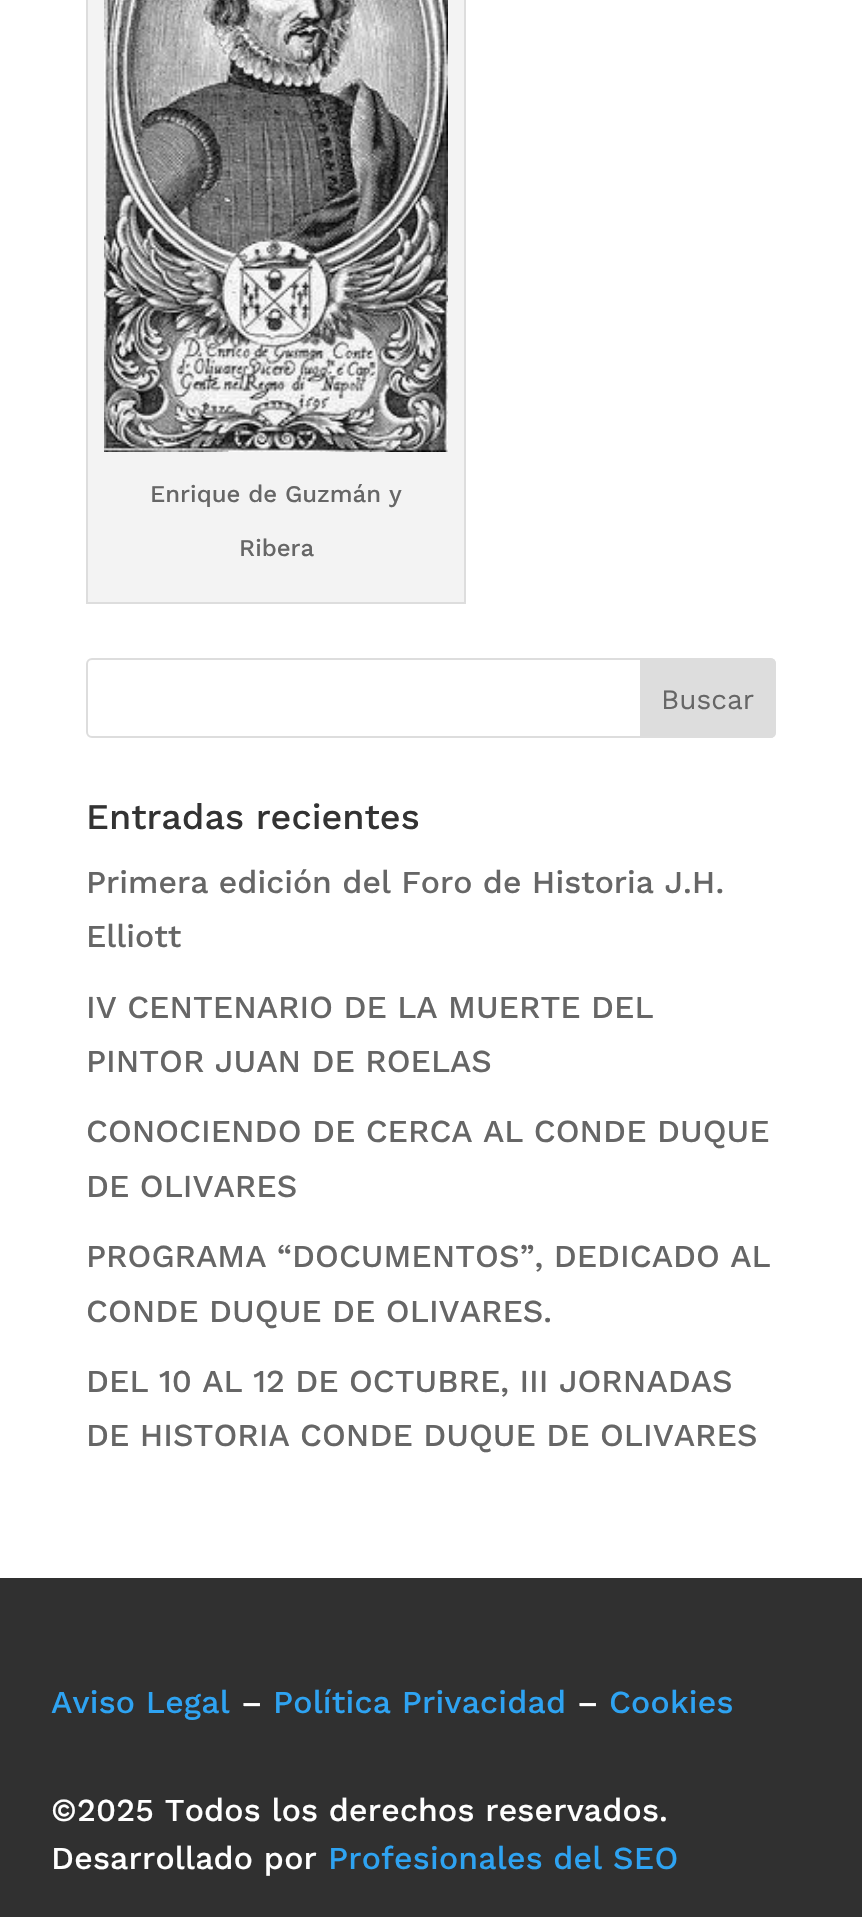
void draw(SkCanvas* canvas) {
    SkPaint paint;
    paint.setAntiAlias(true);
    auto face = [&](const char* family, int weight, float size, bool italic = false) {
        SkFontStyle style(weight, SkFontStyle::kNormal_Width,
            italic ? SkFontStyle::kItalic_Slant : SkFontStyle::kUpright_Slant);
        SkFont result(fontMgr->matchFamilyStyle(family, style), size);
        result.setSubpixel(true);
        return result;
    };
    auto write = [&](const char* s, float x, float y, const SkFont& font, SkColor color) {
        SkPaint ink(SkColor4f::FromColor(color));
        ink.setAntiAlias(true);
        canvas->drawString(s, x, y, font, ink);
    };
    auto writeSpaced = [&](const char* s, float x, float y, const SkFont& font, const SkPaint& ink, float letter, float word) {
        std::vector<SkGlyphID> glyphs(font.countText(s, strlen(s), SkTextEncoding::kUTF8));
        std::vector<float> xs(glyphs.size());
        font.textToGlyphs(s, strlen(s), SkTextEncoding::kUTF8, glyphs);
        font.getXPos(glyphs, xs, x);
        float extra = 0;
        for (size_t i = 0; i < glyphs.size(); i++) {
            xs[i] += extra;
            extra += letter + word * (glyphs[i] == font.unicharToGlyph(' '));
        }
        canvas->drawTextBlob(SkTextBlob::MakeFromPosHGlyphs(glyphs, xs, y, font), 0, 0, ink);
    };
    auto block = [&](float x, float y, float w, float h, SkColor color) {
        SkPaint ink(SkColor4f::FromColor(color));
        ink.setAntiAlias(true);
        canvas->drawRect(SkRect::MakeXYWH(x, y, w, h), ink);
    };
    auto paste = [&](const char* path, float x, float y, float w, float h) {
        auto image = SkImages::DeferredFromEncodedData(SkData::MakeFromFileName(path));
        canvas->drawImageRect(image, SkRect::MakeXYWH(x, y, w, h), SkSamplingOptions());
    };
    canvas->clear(SK_ColorWHITE);
    paint.setColor(SkColorSetRGB(243, 243, 243));
    canvas->drawRect(SkRect::MakeXYWH(87, -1, 378, 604), paint);
    paint.setStyle(SkPaint::kStroke_Style);
    paint.setStrokeWidth(2);
    paint.setColor(SkColorSetRGB(221, 221, 221));
    canvas->drawRect(SkRect::MakeXYWH(87, -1, 378, 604), paint);
    paste("pic1.png", 104, 0, 344, 452);
    auto kFont1 = face("Work Sans", 500, 24);
    write("Enrique de Guzmán y", 150, 502, kFont1, SkColorSetRGB(102, 102, 102));
    write("Ribera", 239, 556, kFont1, SkColorSetRGB(102, 102, 102));
    canvas->drawRoundRect(SkRect::MakeXYWH(87, 659, 688, 78), 5, 5, paint);
    paint.setStyle(SkPaint::kFill_Style);
    canvas->drawPath(SkPathBuilder().moveTo(641, 659).lineTo(770, 659).cubicTo(773, 659, 775, 661, 775, 664).lineTo(775, 732).cubicTo(775, 735, 773, 737, 770, 737).lineTo(641, 737).close().detach(), paint);
    paint.setStyle(SkPaint::kStroke_Style);
    canvas->drawPath(SkPathBuilder().moveTo(641, 659).lineTo(770, 659).cubicTo(773, 659, 775, 661, 775, 664).lineTo(775, 732).cubicTo(775, 735, 773, 737, 770, 737).lineTo(641, 737).close().detach(), paint);
    auto kFont2 = face("Work Sans", 400, 28);
    write("Buscar", 661, 709, kFont2, SkColorSetRGB(102, 102, 102));
    auto kFont3 = face("Work Sans", 500, 36);
    write("Entradas recientes", 86, 829, kFont3, SkColorSetRGB(51, 51, 51));
    auto kFont4 = face("Work Sans", 500, 32);
    write("Primera edición del Foro de Historia J.H.", 86, 893, kFont4, SkColorSetRGB(102, 102, 102));
    write("Elliott", 86, 947, kFont4, SkColorSetRGB(102, 102, 102));
    write("IV CENTENARIO DE LA MUERTE DEL", 86, 1018, kFont4, SkColorSetRGB(102, 102, 102));
    write("PINTOR JUAN DE ROELAS", 86, 1072, kFont4, SkColorSetRGB(102, 102, 102));
    write("CONOCIENDO DE CERCA AL CONDE DUQUE", 86, 1142, kFont4, SkColorSetRGB(102, 102, 102));
    write("DE OLIVARES", 86, 1197, kFont4, SkColorSetRGB(102, 102, 102));
    write("PROGRAMA “DOCUMENTOS”, DEDICADO AL", 86, 1267, kFont4, SkColorSetRGB(102, 102, 102));
    write("CONDE DUQUE DE OLIVARES.", 86, 1322, kFont4, SkColorSetRGB(102, 102, 102));
    write("DEL 10 AL 12 DE OCTUBRE, III JORNADAS", 86, 1392, kFont4, SkColorSetRGB(102, 102, 102));
    write("DE HISTORIA CONDE DUQUE DE OLIVARES", 86, 1446, kFont4, SkColorSetRGB(102, 102, 102));
    block(0, 1578, 862, 339, SkColorSetRGB(48, 48, 48));
    paint.setStyle(SkPaint::kFill_Style);
    paint.setColor(SkColorSetRGB(46, 163, 242));
    writeSpaced("Aviso Legal", 51, 1713, kFont4, paint, 0.2f, 0);
    paint.setColor(SK_ColorWHITE);
    writeSpaced("–", 241, 1713, kFont4, paint, 0.2f, 0);
    paint.setColor(SkColorSetRGB(46, 163, 242));
    writeSpaced("Política Privacidad", 273, 1713, kFont4, paint, 0.2f, 0);
    paint.setColor(SK_ColorWHITE);
    writeSpaced("–", 577, 1713, kFont4, paint, 0.2f, 0);
    paint.setColor(SkColorSetRGB(46, 163, 242));
    writeSpaced("Cookies", 609, 1713, kFont4, paint, 0.2f, 0);
    paint.setColor(SK_ColorWHITE);
    writeSpaced("©2025 Todos los derechos reservados.", 51, 1821, kFont4, paint, 0.2f, 0);
    writeSpaced("Desarrollado por", 51, 1869, kFont4, paint, 0.2f, 0);
    paint.setColor(SkColorSetRGB(46, 163, 242));
    writeSpaced("Profesionales del SEO", 328, 1869, kFont4, paint, 0.2f, 0);
}
